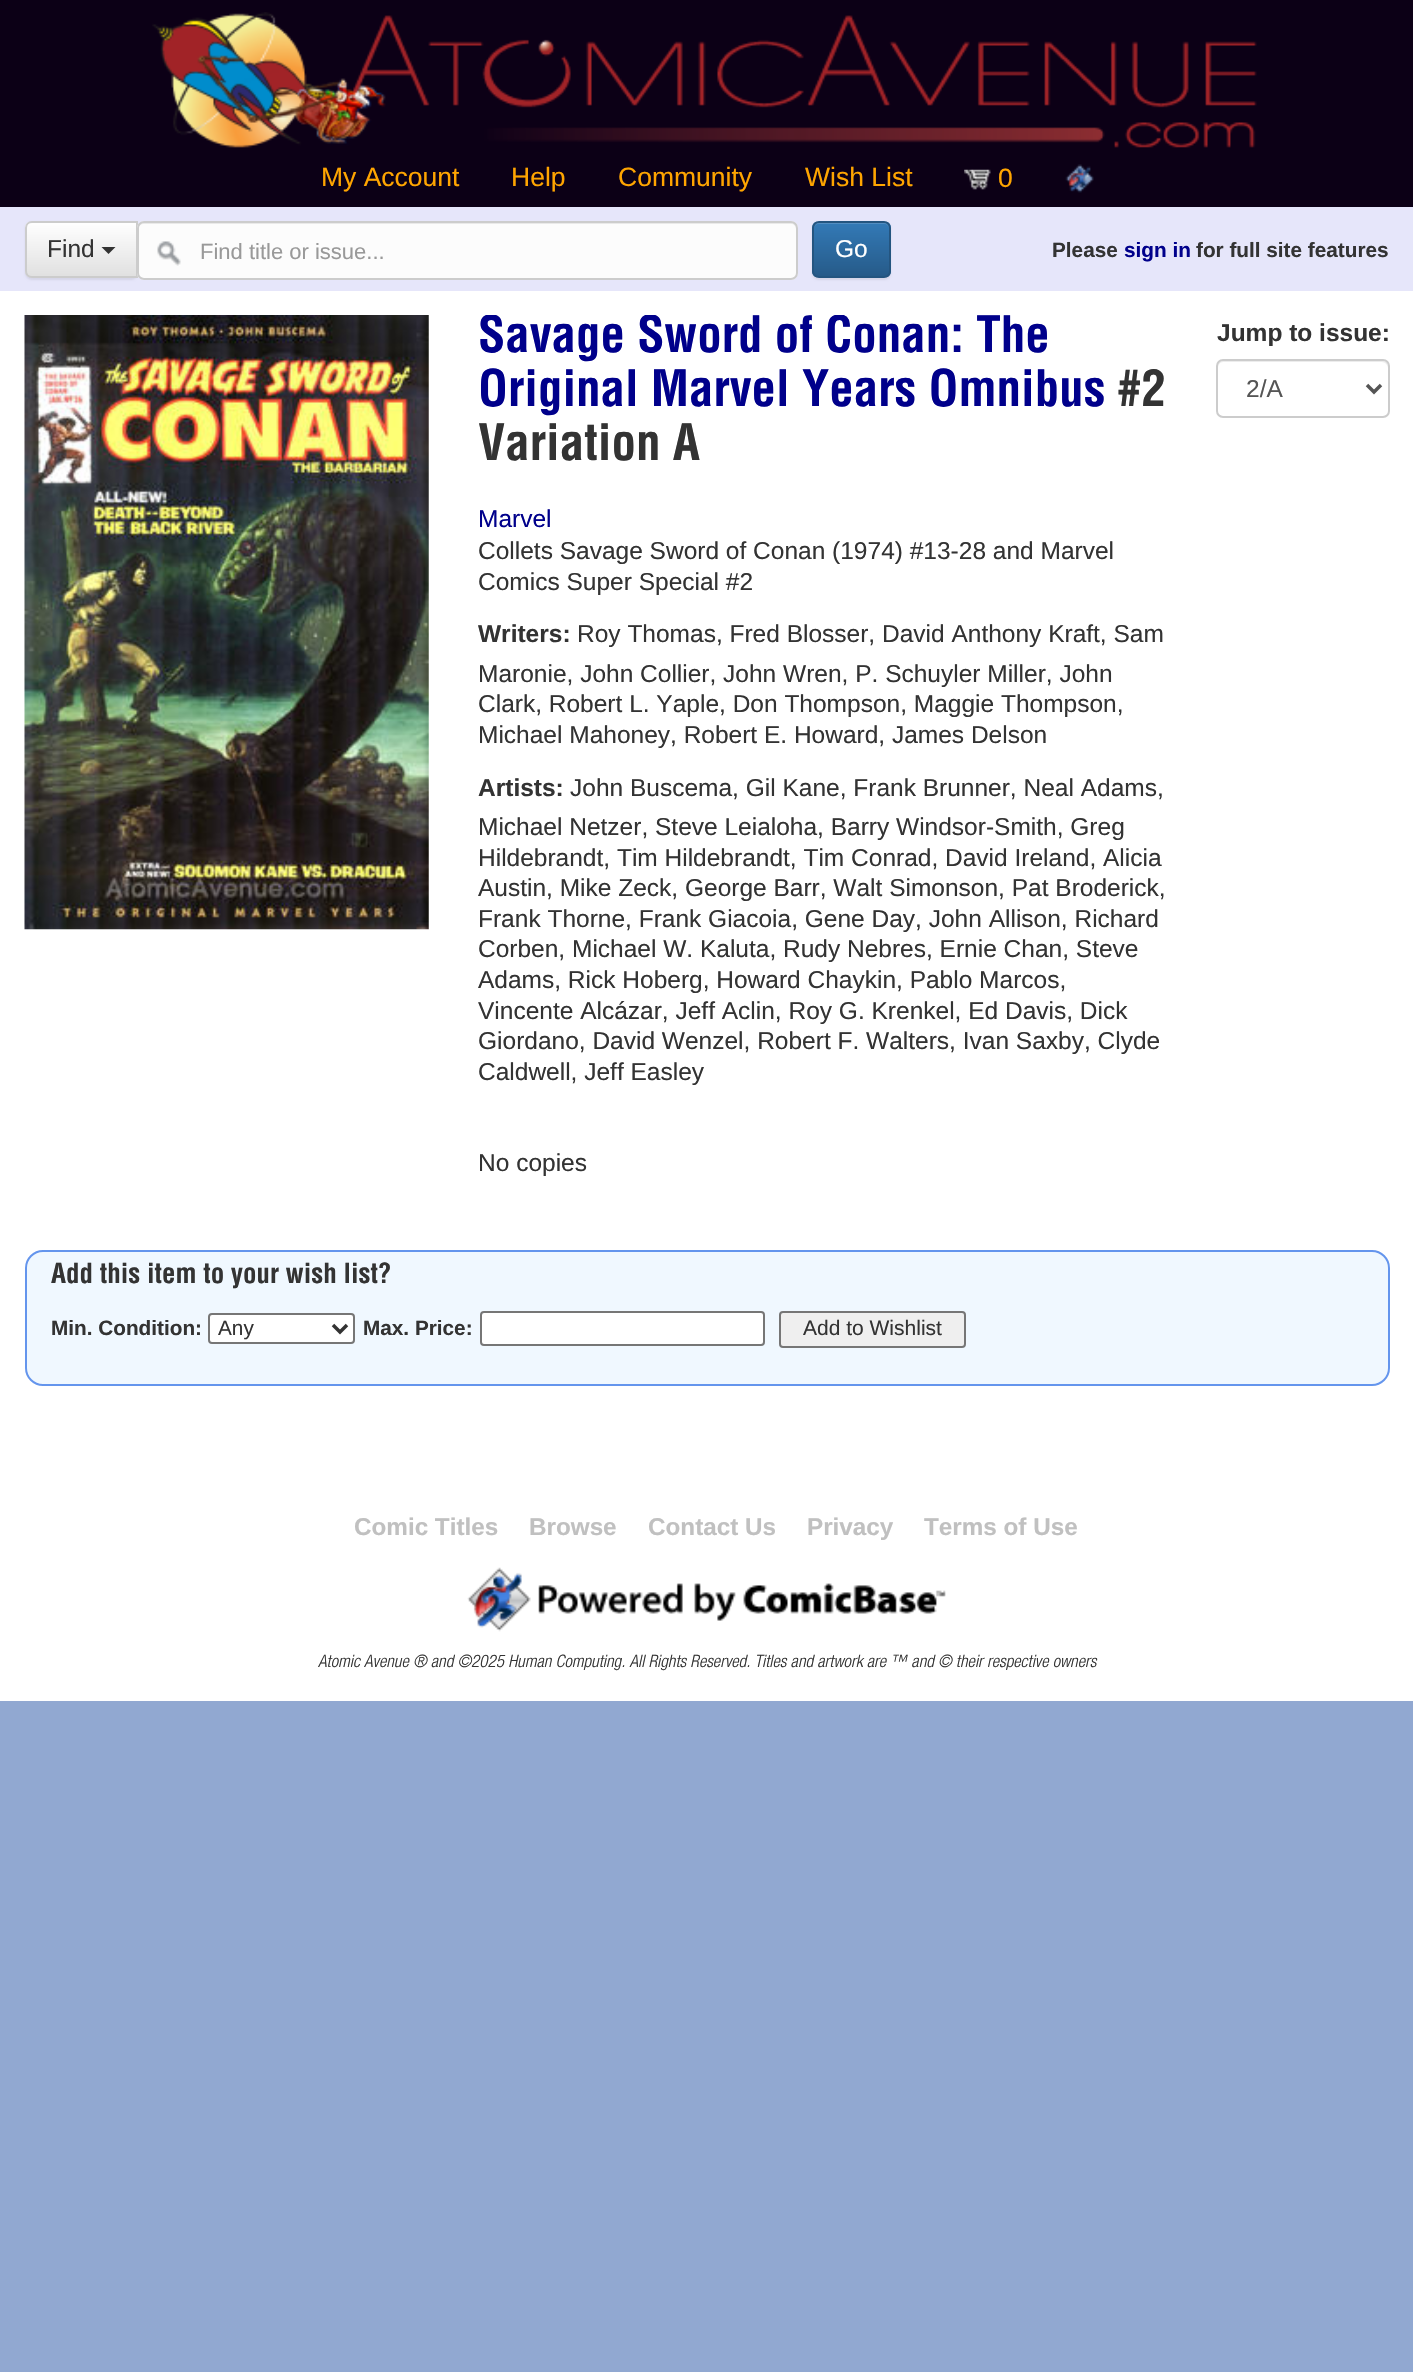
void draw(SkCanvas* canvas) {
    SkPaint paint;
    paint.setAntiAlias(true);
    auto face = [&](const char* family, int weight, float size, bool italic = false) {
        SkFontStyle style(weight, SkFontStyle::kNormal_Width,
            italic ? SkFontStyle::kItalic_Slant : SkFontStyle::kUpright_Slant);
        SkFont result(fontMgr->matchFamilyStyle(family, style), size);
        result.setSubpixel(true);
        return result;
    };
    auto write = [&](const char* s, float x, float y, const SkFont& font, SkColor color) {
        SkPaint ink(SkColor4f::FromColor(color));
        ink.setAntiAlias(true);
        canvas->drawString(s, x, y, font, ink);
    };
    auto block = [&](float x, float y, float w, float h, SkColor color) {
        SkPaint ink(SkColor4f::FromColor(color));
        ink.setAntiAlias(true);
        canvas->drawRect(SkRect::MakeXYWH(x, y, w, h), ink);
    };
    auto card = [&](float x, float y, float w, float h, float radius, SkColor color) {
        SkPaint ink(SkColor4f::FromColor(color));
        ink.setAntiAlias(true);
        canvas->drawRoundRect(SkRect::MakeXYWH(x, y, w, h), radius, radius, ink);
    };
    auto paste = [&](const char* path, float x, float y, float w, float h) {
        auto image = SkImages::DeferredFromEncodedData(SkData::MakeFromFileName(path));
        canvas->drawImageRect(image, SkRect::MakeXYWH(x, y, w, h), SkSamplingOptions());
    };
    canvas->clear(SkColorSetRGB(145, 168, 209));
    block(0, 291, 1413, 1410, SK_ColorWHITE);
    block(0, 0, 1413, 207, SkColorSetRGB(12, 0, 22));
    paste("pic1.png", 152, 12, 1105, 136);
    auto kFont1 = face("Liberation Sans", 400, 26.5f);
    write("My Account", 321, 186, kFont1, SkColorSetRGB(255, 165, 0));
    write("Help", 511, 186, kFont1, SkColorSetRGB(255, 165, 0));
    write("Community", 618, 186, kFont1, SkColorSetRGB(255, 165, 0));
    write("Wish List", 805, 186, kFont1, SkColorSetRGB(255, 165, 0));
    paste("pic2.png", 964, 169, 27, 21);
    write("0", 998, 187, kFont1, SkColorSetRGB(255, 165, 0));
    paste("pic3.png", 1065, 164, 29, 29);
    block(0, 207, 1413, 84, SkColorSetRGB(230, 230, 250));
    paint.setColor(SkColorSetARGB(18, 0, 0, 0));
    paint.setMaskFilter(SkMaskFilter::MakeBlur(kNormal_SkBlurStyle, 1));
    canvas->drawRoundRect(SkRect::MakeXYWH(25, 222, 113, 58), 7, 7, paint);
    paint.setMaskFilter(nullptr);
    canvas->save();
    canvas->clipPath(SkPathBuilder().moveTo(32, 221).lineTo(138, 221).lineTo(138, 278).lineTo(32, 278).cubicTo(28, 278, 25, 275, 25, 271).lineTo(25, 228).cubicTo(25, 224, 28, 221, 32, 221).close().detach(), true);
    {
        const SkColor colors[] = {SK_ColorWHITE, SkColorSetRGB(224, 224, 224)};
        const float stops[] = {0, 1};
        const SkPoint ends[] = {{81, 222}, {81, 277}};
        paint.setShader(SkGradientShader::MakeLinear(ends, colors, stops, 2, SkTileMode::kClamp));
        paint.setAlpha(255);
    }
    canvas->drawRect(SkRect::MakeXYWH(25, 222, 111, 55), paint);
    canvas->restore();
    paint.setShader(nullptr);
    paint.setColor(SkColorSetARGB(38, 255, 255, 255));
    canvas->drawPath(SkPathBuilder().moveTo(32, 224).lineTo(136, 224).lineTo(136, 277).lineTo(137, 277).lineTo(137, 222).lineTo(31, 222).cubicTo(28, 222, 26, 224, 26, 227).lineTo(26, 229).cubicTo(26, 226, 29, 224, 32, 224).close().detach(), paint);
    paint.setStyle(SkPaint::kStroke_Style);
    paint.setStrokeWidth(2);
    paint.setColor(SkColorSetRGB(204, 204, 204));
    canvas->drawPath(SkPathBuilder().moveTo(32, 222).lineTo(137, 222).lineTo(137, 277).lineTo(32, 277).cubicTo(28.5f, 277, 26, 274.5f, 26, 271).lineTo(26, 228).cubicTo(26, 224.5f, 28.5f, 222, 32, 222).close().detach(), paint);
    auto kFont2 = face("Liberation Sans", 400, 24.5f);
    write("Find", 47, 257, kFont2, SkColorSetRGB(51, 51, 51));
    paint.setStyle(SkPaint::kFill_Style);
    paint.setColor(SkColorSetRGB(51, 51, 51));
    canvas->drawPath(SkPathBuilder().moveTo(101.5f, 247).lineTo(115.5f, 247).lineTo(108.5f, 254).close().detach(), paint);
    card(137, 221, 661, 59, 7, SkColorSetRGB(252, 252, 252));
    paste("pic4.png", 157, 241, 24, 25);
    paint.setColor(SkColorSetRGB(233, 233, 233));
    canvas->drawPath(SkPathBuilder().moveTo(144, 224).lineTo(791, 224).cubicTo(794, 224, 796, 226, 796, 229).lineTo(796, 227).cubicTo(796, 224, 794, 222, 791, 222).lineTo(143, 222).cubicTo(140, 222, 138, 224, 138, 227).lineTo(138, 229).cubicTo(138, 226, 141, 224, 144, 224).close().detach(), paint);
    paint.setStyle(SkPaint::kStroke_Style);
    paint.setColor(SkColorSetRGB(204, 204, 204));
    canvas->drawRoundRect(SkRect::MakeXYWH(138, 222, 659, 57), 6, 6, paint);
    auto kFont3 = face("Liberation Sans", 400, 22);
    write("Find title or issue...", 200, 259, kFont3, SkColorSetRGB(153, 153, 153));
    paint.setStyle(SkPaint::kFill_Style);
    paint.setColor(SkColorSetARGB(18, 0, 0, 0));
    paint.setMaskFilter(SkMaskFilter::MakeBlur(kNormal_SkBlurStyle, 1));
    canvas->drawRoundRect(SkRect::MakeXYWH(812, 222, 79, 58), 7, 7, paint);
    paint.setMaskFilter(nullptr);
    canvas->save();
    canvas->clipPath(SkPathBuilder().moveTo(819, 221).lineTo(884, 221).cubicTo(888, 221, 891, 224, 891, 228).lineTo(891, 271).cubicTo(891, 275, 888, 278, 884, 278).lineTo(819, 278).cubicTo(815, 278, 812, 275, 812, 271).lineTo(812, 228).cubicTo(812, 224, 815, 221, 819, 221).close().detach(), true);
    {
        const SkColor colors[] = {SkColorSetRGB(51, 122, 183), SkColorSetRGB(38, 90, 136)};
        const float stops[] = {0, 1};
        const SkPoint ends[] = {{851, 222}, {851, 277}};
        paint.setShader(SkGradientShader::MakeLinear(ends, colors, stops, 2, SkTileMode::kClamp));
        paint.setAlpha(255);
    }
    canvas->drawRect(SkRect::MakeXYWH(812, 222, 79, 55), paint);
    canvas->restore();
    paint.setShader(nullptr);
    paint.setColor(SkColorSetARGB(38, 255, 255, 255));
    canvas->drawPath(SkPathBuilder().moveTo(819, 224).lineTo(884, 224).cubicTo(887, 224, 889, 226, 889, 229).cubicTo(889, 219, 881, 222, 873, 222).lineTo(830, 222).cubicTo(822, 222, 814, 219, 814, 229).cubicTo(814, 226, 816, 224, 819, 224).close().detach(), paint);
    paint.setStyle(SkPaint::kStroke_Style);
    paint.setColor(SkColorSetRGB(36, 85, 128));
    canvas->drawRoundRect(SkRect::MakeXYWH(813, 222, 77, 55), 6, 6, paint);
    write("Go", 835, 257, kFont2, SK_ColorWHITE);
    auto kFont4 = face("Liberation Sans", 700, 20.75f);
    write("Please", 1052, 257, kFont4, SkColorSetRGB(51, 51, 51));
    write("sign in", 1124, 257, kFont4, SkColorSetRGB(0, 0, 139));
    write("for full site features", 1196, 257, kFont4, SkColorSetRGB(51, 51, 51));
    paste("pic5.png", 24, 315, 405, 615);
    canvas->save();
    canvas->clipRect(SkRect::MakeXYWH(478, 315, 689, 865));
    auto kFont5 = face("Helvetica", 700, 49);
    write("Savage Sword of Conan: The", 478, 352, kFont5, SkColorSetRGB(0, 0, 139));
    canvas->restore();
    write("Original Marvel Years Omnibus", 478, 406, kFont5, SkColorSetRGB(0, 0, 139));
    write("#2", 1117, 406, kFont5, SkColorSetRGB(51, 51, 51));
    write("Variation A", 478, 460, kFont5, SkColorSetRGB(51, 51, 51));
    write("Marvel", 478, 527, kFont2, SkColorSetRGB(0, 0, 139));
    write("Collets Savage Sword of Conan (1974) #13-28 and Marvel", 478, 559, kFont2, SkColorSetRGB(51, 51, 51));
    write("Comics Super Special #2", 478, 590, kFont2, SkColorSetRGB(51, 51, 51));
    auto kFont6 = face("Liberation Sans", 700, 24.5f);
    write("Writers:", 478, 642, kFont6, SkColorSetRGB(51, 51, 51));
    write("Roy Thomas, Fred Blosser, David Anthony Kraft, Sam", 577, 642, kFont2, SkColorSetRGB(51, 51, 51));
    write("Maronie, John Collier, John Wren, P. Schuyler Miller, John", 478, 682, kFont2, SkColorSetRGB(51, 51, 51));
    write("Clark, Robert L. Yaple, Don Thompson, Maggie Thompson,", 478, 712, kFont2, SkColorSetRGB(51, 51, 51));
    write("Michael Mahoney, Robert E. Howard, James Delson", 478, 743, kFont2, SkColorSetRGB(51, 51, 51));
    write("Artists:", 478, 796, kFont6, SkColorSetRGB(51, 51, 51));
    write("John Buscema, Gil Kane, Frank Brunner, Neal Adams,", 570, 796, kFont2, SkColorSetRGB(51, 51, 51));
    write("Michael Netzer, Steve Leialoha, Barry Windsor-Smith, Greg", 478, 835, kFont2, SkColorSetRGB(51, 51, 51));
    write("Hildebrandt, Tim Hildebrandt, Tim Conrad, David Ireland, Alicia", 478, 866, kFont2, SkColorSetRGB(51, 51, 51));
    write("Austin, Mike Zeck, George Barr, Walt Simonson, Pat Broderick,", 478, 896, kFont2, SkColorSetRGB(51, 51, 51));
    write("Frank Thorne, Frank Giacoia, Gene Day, John Allison, Richard", 478, 927, kFont2, SkColorSetRGB(51, 51, 51));
    write("Corben, Michael W. Kaluta, Rudy Nebres, Ernie Chan, Steve", 478, 957, kFont2, SkColorSetRGB(51, 51, 51));
    write("Adams, Rick Hoberg, Howard Chaykin, Pablo Marcos,", 478, 988, kFont2, SkColorSetRGB(51, 51, 51));
    write("Vincente Alcázar, Jeff Aclin, Roy G. Krenkel, Ed Davis, Dick", 478, 1019, kFont2, SkColorSetRGB(51, 51, 51));
    write("Giordano, David Wenzel, Robert F. Walters, Ivan Saxby, Clyde", 478, 1049, kFont2, SkColorSetRGB(51, 51, 51));
    write("Caldwell, Jeff Easley", 478, 1080, kFont2, SkColorSetRGB(51, 51, 51));
    write("No copies", 478, 1171, kFont2, SkColorSetRGB(51, 51, 51));
    write("Jump to issue:", 1217, 341, kFont6, SkColorSetRGB(51, 51, 51));
    paint.setStyle(SkPaint::kFill_Style);
    paint.setColor(SkColorSetRGB(236, 236, 236));
    canvas->drawPath(SkPathBuilder().moveTo(1223, 362).lineTo(1382, 362).cubicTo(1385, 362, 1388, 365, 1388, 368).lineTo(1388, 366).cubicTo(1388, 363, 1386, 361, 1383, 361).lineTo(1223, 361).cubicTo(1220, 361, 1218, 363, 1218, 366).lineTo(1218, 368).cubicTo(1218, 365, 1220, 362, 1223, 362).close().detach(), paint);
    paint.setStyle(SkPaint::kStroke_Style);
    paint.setColor(SkColorSetRGB(204, 204, 204));
    canvas->drawRoundRect(SkRect::MakeXYWH(1217, 360, 172, 57), 6, 6, paint);
    paint.setStrokeWidth(3.5f);
    paint.setColor(SkColorSetRGB(85, 85, 85));
    canvas->drawPath(SkPathBuilder().moveTo(1367, 385).lineTo(1374, 392).lineTo(1381, 385).detach(), paint);
    write("2/A", 1246, 397, kFont2, SkColorSetRGB(85, 85, 85));
    paint.setStyle(SkPaint::kFill_Style);
    paint.setColor(SkColorSetRGB(240, 248, 255));
    canvas->drawRoundRect(SkRect::MakeXYWH(26, 1251, 1363, 134), 17, 17, paint);
    paint.setStyle(SkPaint::kStroke_Style);
    paint.setStrokeWidth(2);
    paint.setColor(SkColorSetRGB(100, 149, 237));
    canvas->drawRoundRect(SkRect::MakeXYWH(26, 1251, 1363, 134), 17, 17, paint);
    auto kFont7 = face("Helvetica", 700, 27);
    write("Add this item to your wish list?", 51, 1283, kFont7, SkColorSetRGB(51, 51, 51));
    write("Min. Condition:", 51, 1335, kFont4, SkColorSetRGB(51, 51, 51));
    paint.setStyle(SkPaint::kFill_Style);
    paint.setColor(SK_ColorWHITE);
    canvas->drawRoundRect(SkRect::MakeXYWH(209, 1314, 145, 29), 3, 3, paint);
    paint.setStyle(SkPaint::kStroke_Style);
    paint.setColor(SkColorSetRGB(118, 118, 118));
    canvas->drawRoundRect(SkRect::MakeXYWH(209, 1314, 145, 29), 3, 3, paint);
    paint.setStrokeWidth(3.5f);
    paint.setColor(SkColorSetRGB(51, 51, 51));
    canvas->drawPath(SkPathBuilder().moveTo(333, 1325).lineTo(340, 1332).lineTo(347, 1325).detach(), paint);
    auto kFont8 = face("Liberation Sans", 400, 20.75f);
    write("Any", 218, 1335, kFont8, SkColorSetRGB(51, 51, 51));
    write("Max. Price:", 363, 1335, kFont4, SkColorSetRGB(51, 51, 51));
    paint.setStyle(SkPaint::kFill_Style);
    paint.setColor(SK_ColorWHITE);
    canvas->drawRoundRect(SkRect::MakeXYWH(481, 1312, 283, 33), 3, 3, paint);
    paint.setStyle(SkPaint::kStroke_Style);
    paint.setStrokeWidth(2);
    paint.setColor(SkColorSetRGB(118, 118, 118));
    canvas->drawRoundRect(SkRect::MakeXYWH(481, 1312, 283, 33), 3, 3, paint);
    paint.setStyle(SkPaint::kFill_Style);
    paint.setColor(SkColorSetRGB(239, 239, 239));
    canvas->drawRoundRect(SkRect::MakeXYWH(780, 1312, 185, 35), 3, 3, paint);
    paint.setStyle(SkPaint::kStroke_Style);
    paint.setColor(SkColorSetRGB(118, 118, 118));
    canvas->drawRoundRect(SkRect::MakeXYWH(780, 1312, 185, 35), 3, 3, paint);
    auto kFont9 = face("Liberation Sans", 400, 21);
    write("Add to Wishlist", 803, 1335, kFont9, SkColorSetRGB(51, 51, 51));
    auto kFont10 = face("Liberation Sans", 700, 24.25f);
    write("Comic Titles", 354, 1535, kFont10, SkColorSetRGB(192, 192, 192));
    write("Browse", 529, 1535, kFont10, SkColorSetRGB(192, 192, 192));
    write("Contact Us", 648, 1535, kFont10, SkColorSetRGB(192, 192, 192));
    write("Privacy", 807, 1535, kFont10, SkColorSetRGB(192, 192, 192));
    write("Terms of Use", 924, 1535, kFont10, SkColorSetRGB(192, 192, 192));
    paste("pic6.png", 467, 1567, 479, 65);
    auto kFont11 = face("Helvetica Neue", 300, 17.15f, true);
    write("Atomic Avenue ® and ©2025 Human Computing. All Rights Reserved. Titles and artwork are ™ and © their respective owners", 318, 1667, kFont11, SkColorSetRGB(51, 51, 51));
}
